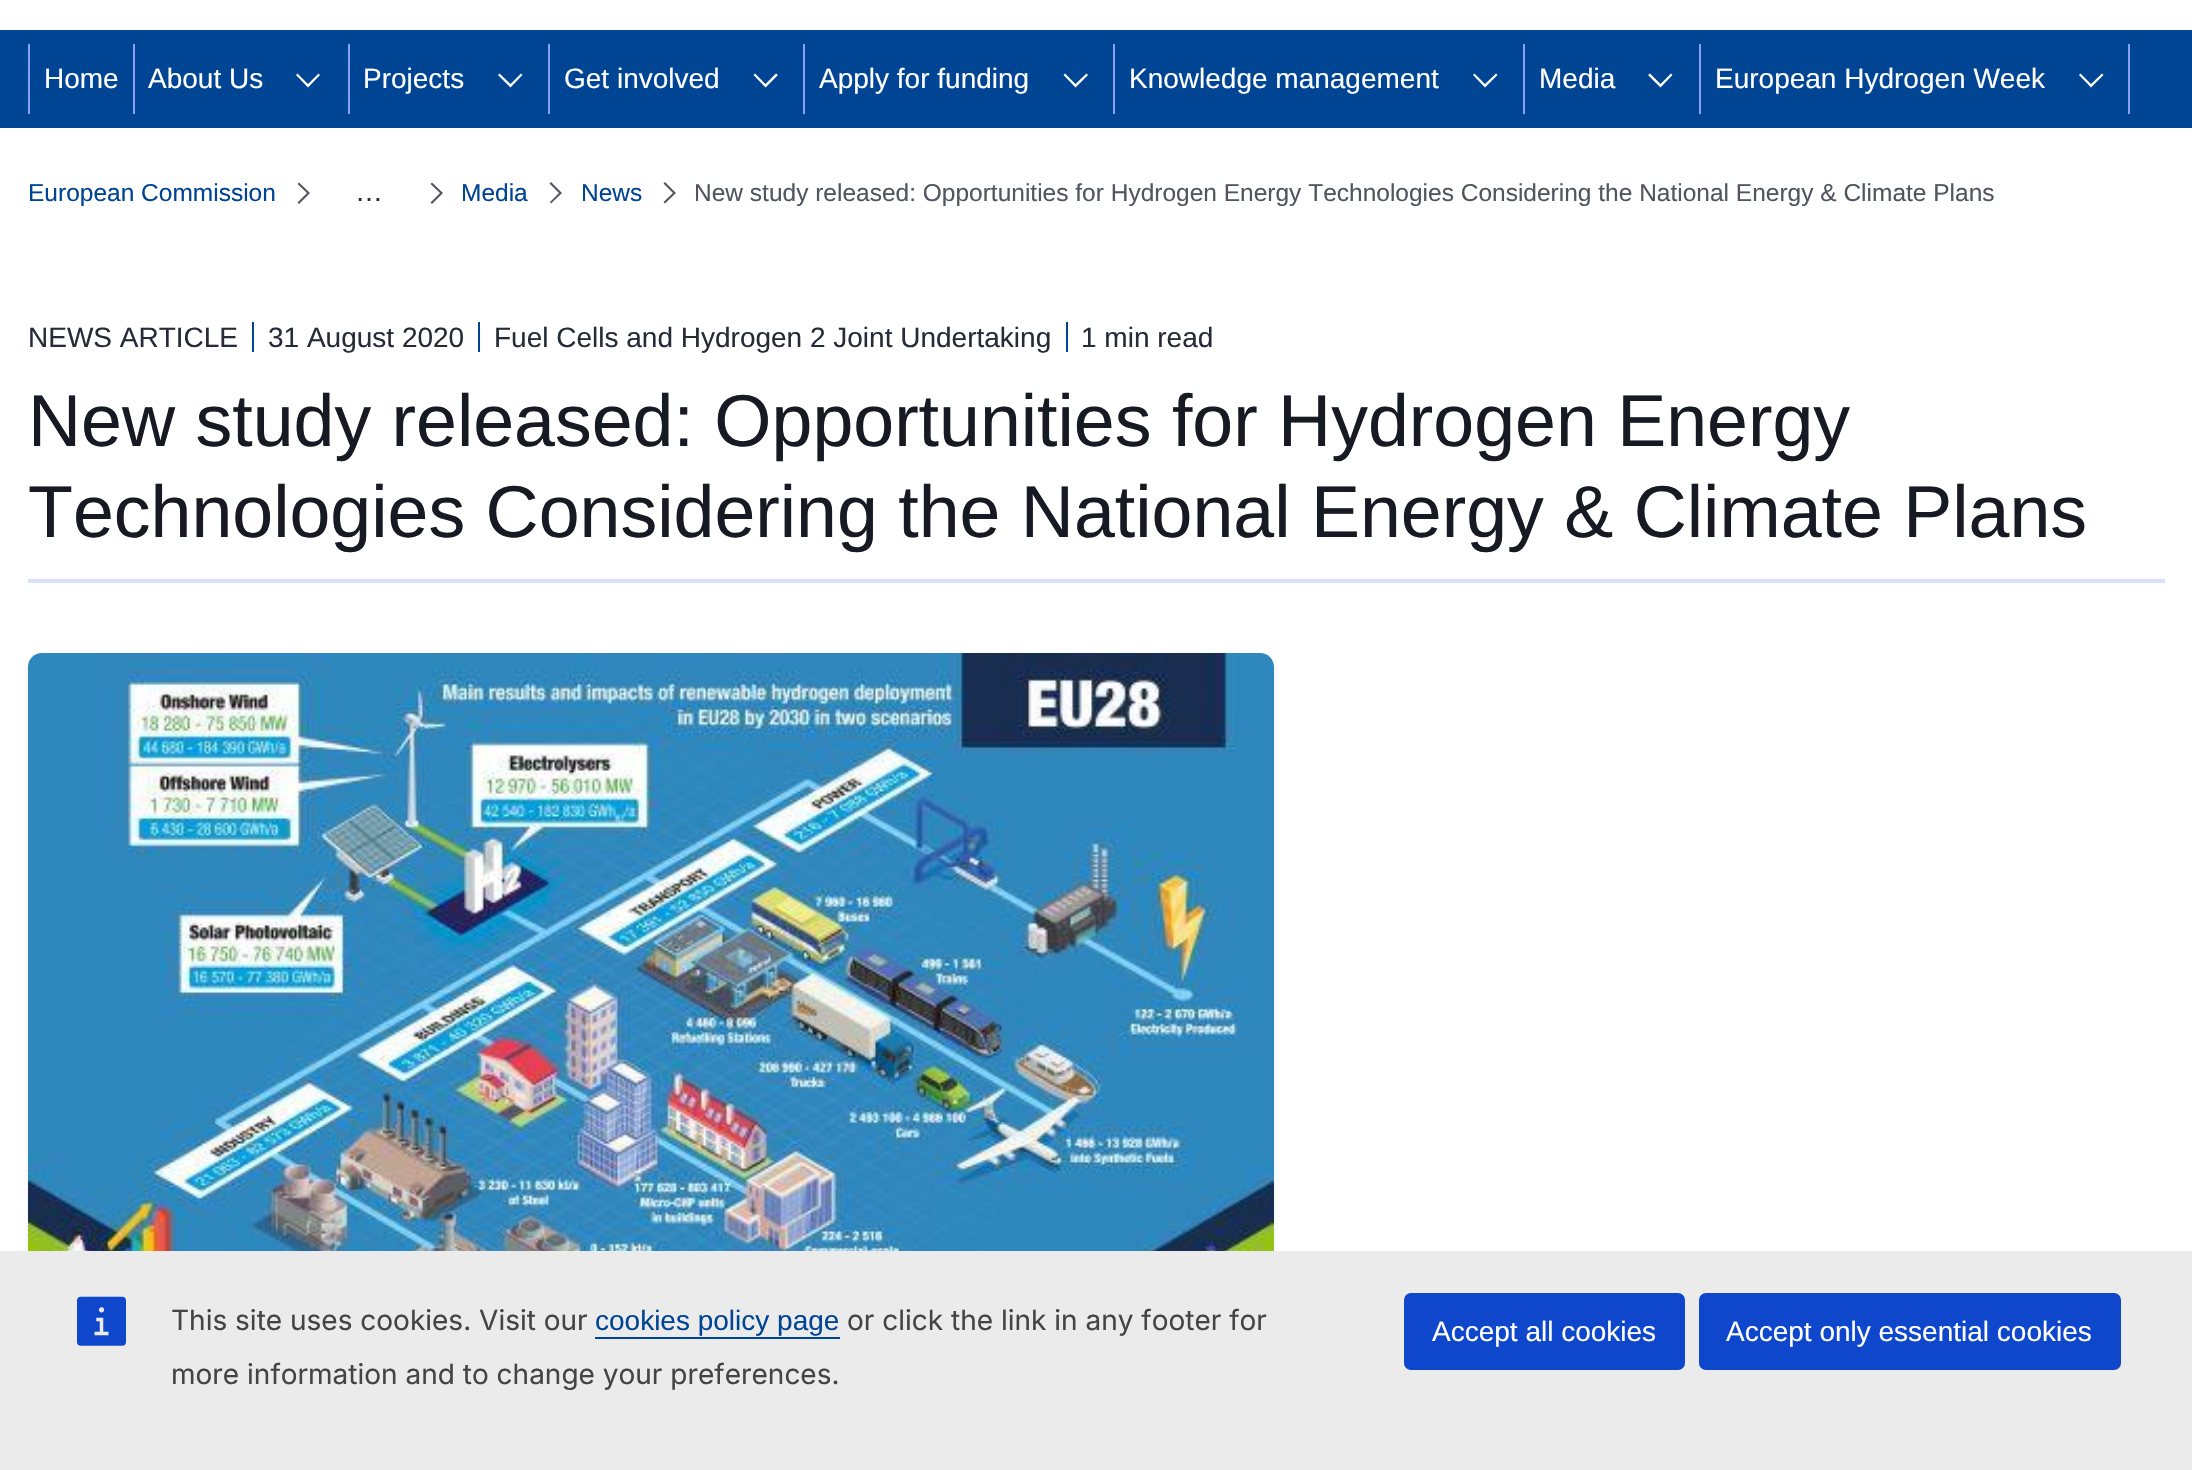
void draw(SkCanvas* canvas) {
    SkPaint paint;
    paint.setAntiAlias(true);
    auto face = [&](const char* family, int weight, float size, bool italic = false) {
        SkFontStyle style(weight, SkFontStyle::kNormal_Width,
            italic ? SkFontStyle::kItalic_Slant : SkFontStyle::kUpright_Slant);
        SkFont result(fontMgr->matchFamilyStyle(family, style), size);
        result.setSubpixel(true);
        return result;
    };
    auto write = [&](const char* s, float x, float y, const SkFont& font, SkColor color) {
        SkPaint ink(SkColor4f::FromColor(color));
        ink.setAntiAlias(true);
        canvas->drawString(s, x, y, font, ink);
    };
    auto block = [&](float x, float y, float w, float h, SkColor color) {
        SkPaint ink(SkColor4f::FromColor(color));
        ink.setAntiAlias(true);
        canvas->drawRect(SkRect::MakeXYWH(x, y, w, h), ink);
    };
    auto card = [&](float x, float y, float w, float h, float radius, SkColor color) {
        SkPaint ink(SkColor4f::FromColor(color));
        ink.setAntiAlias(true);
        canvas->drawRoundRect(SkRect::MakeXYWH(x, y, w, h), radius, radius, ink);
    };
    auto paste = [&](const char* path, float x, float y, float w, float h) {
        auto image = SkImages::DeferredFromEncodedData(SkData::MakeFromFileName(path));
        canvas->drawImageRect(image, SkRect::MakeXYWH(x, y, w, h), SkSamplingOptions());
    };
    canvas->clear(SK_ColorWHITE);
    block(0, 30, 2192, 98, SkColorSetRGB(0, 68, 148));
    block(28, 44, 2, 70, SkColorSetRGB(137, 161, 244));
    auto kFont1 = face("Liberation Sans", 400, 28);
    write("Home", 44, 88, kFont1, SK_ColorWHITE);
    block(133, 44, 2, 70, SkColorSetRGB(137, 161, 244));
    write("About Us", 148, 88, kFont1, SK_ColorWHITE);
    paint.setColor(SK_ColorWHITE);
    canvas->drawPath(SkPathBuilder().moveTo(296, 75).lineTo(297.5f, 73.5f).lineTo(308, 84).lineTo(318.5f, 73.5f).lineTo(320, 75).lineTo(308, 87.5f).close().detach(), paint);
    block(348, 44, 2, 70, SkColorSetRGB(137, 161, 244));
    write("Projects", 363, 88, kFont1, SK_ColorWHITE);
    canvas->drawPath(SkPathBuilder().moveTo(498, 75).lineTo(499.5f, 73.5f).lineTo(510.5f, 84).lineTo(521, 73.5f).lineTo(522.5f, 75).lineTo(510.5f, 87.5f).close().detach(), paint);
    block(548, 44, 2, 70, SkColorSetRGB(137, 161, 244));
    write("Get involved", 564, 88, kFont1, SK_ColorWHITE);
    canvas->drawPath(SkPathBuilder().moveTo(753.5f, 75).lineTo(755, 73.5f).lineTo(765.5f, 84).lineTo(776, 73.5f).lineTo(778, 75).lineTo(765.5f, 87.5f).close().detach(), paint);
    block(803, 44, 2, 70, SkColorSetRGB(137, 161, 244));
    write("Apply for funding", 819, 88, kFont1, SK_ColorWHITE);
    canvas->drawPath(SkPathBuilder().moveTo(1063.5f, 75).lineTo(1065, 73.5f).lineTo(1075.5f, 84).lineTo(1086.5f, 73.5f).lineTo(1088, 75).lineTo(1075.5f, 87.5f).close().detach(), paint);
    block(1113, 44, 2, 70, SkColorSetRGB(137, 161, 244));
    write("Knowledge management", 1129, 88, kFont1, SK_ColorWHITE);
    canvas->drawPath(SkPathBuilder().moveTo(1473, 75).lineTo(1474.5f, 73.5f).lineTo(1485, 84).lineTo(1496, 73.5f).lineTo(1497.5f, 75).lineTo(1485, 87.5f).close().detach(), paint);
    block(1523, 44, 2, 70, SkColorSetRGB(137, 161, 244));
    write("Media", 1539, 88, kFont1, SK_ColorWHITE);
    canvas->drawPath(SkPathBuilder().moveTo(1648, 75).lineTo(1650, 73.5f).lineTo(1660.5f, 84).lineTo(1671, 73.5f).lineTo(1672.5f, 75).lineTo(1660.5f, 87.5f).close().detach(), paint);
    block(1699, 44, 2, 70, SkColorSetRGB(137, 161, 244));
    write("European Hydrogen Week", 1715, 88, kFont1, SK_ColorWHITE);
    canvas->drawPath(SkPathBuilder().moveTo(2079, 75).lineTo(2080.5f, 73.5f).lineTo(2091, 84).lineTo(2102, 73.5f).lineTo(2103.5f, 75).lineTo(2091, 87.5f).close().detach(), paint);
    block(2128, 44, 2, 70, SkColorSetRGB(137, 161, 244));
    auto kFont2 = face("Liberation Sans", 400, 24.5f);
    write("European Commission", 28, 201, kFont2, SkColorSetRGB(0, 68, 148));
    paint.setColor(SkColorSetRGB(81, 85, 96));
    canvas->drawPath(SkPathBuilder().moveTo(299, 204).lineTo(297.5f, 202.5f).lineTo(307, 193).lineTo(297.5f, 184).lineTo(299, 182.5f).lineTo(310, 193).close().detach(), paint);
    write("…", 355, 201, kFont1, SkColorSetRGB(38, 43, 56));
    canvas->drawPath(SkPathBuilder().moveTo(432, 204).lineTo(430.5f, 202.5f).lineTo(440, 193).lineTo(430.5f, 184).lineTo(432, 182.5f).lineTo(443, 193).close().detach(), paint);
    write("Media", 461, 201, kFont2, SkColorSetRGB(0, 68, 148));
    canvas->drawPath(SkPathBuilder().moveTo(551, 203.5f).lineTo(550, 202).lineTo(559, 193).lineTo(549.5f, 183.5f).lineTo(551, 182).lineTo(562, 193).close().detach(), paint);
    write("News", 581, 201, kFont2, SkColorSetRGB(0, 68, 148));
    canvas->drawPath(SkPathBuilder().moveTo(665, 203.5f).lineTo(663.5f, 202).lineTo(673, 193).lineTo(663.5f, 183.5f).lineTo(665, 182).lineTo(676, 193).close().detach(), paint);
    write("New study released: Opportunities for Hydrogen Energy Technologies Considering the National Energy & Climate Plans", 694, 201, kFont2, SkColorSetRGB(81, 85, 96));
    write("NEWS ARTICLE", 28, 347, kFont1, SkColorSetRGB(38, 43, 56));
    block(252, 322, 2, 30, SkColorSetRGB(0, 68, 148));
    write("31 August 2020", 268, 347, kFont1, SkColorSetRGB(38, 43, 56));
    block(478, 322, 2, 30, SkColorSetRGB(0, 68, 148));
    write("Fuel Cells and Hydrogen 2 Joint Undertaking", 494, 347, kFont1, SkColorSetRGB(38, 43, 56));
    block(1066, 322, 2, 30, SkColorSetRGB(0, 68, 148));
    write("1 min read", 1081, 347, kFont1, SkColorSetRGB(38, 43, 56));
    block(28, 579, 2137, 4, SkColorSetRGB(216, 224, 251));
    auto kFont3 = face("Liberation Sans", 400, 73.5f);
    write("New study released: Opportunities for Hydrogen Energy", 28, 446, kFont3, SkColorSetRGB(23, 26, 34));
    write("Technologies Considering the National Energy & Climate Plans", 28, 537, kFont3, SkColorSetRGB(23, 26, 34));
    paint.setColor(SkColorSetARGB(20, 9, 49, 142));
    paint.setMaskFilter(SkMaskFilter::MakeBlur(kNormal_SkBlurStyle, 3.5f));
    canvas->drawRoundRect(SkRect::MakeXYWH(28, 656, 1246, 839), 14, 14, paint);
    paint.setMaskFilter(nullptr);
    paste("pic1.png", 28, 653, 1246, 598);
    block(0, 1251, 2192, 219, SkColorSetRGB(235, 235, 235));
    paste("pic2.png", 77, 1296, 49, 50);
    auto kFont4 = face("Inter", 400, 28);
    write("This site uses cookies. Visit our", 171, 1330, kFont4, SkColorSetRGB(68, 68, 68));
    write("cookies policy page", 595, 1330, kFont1, SkColorSetRGB(0, 68, 148));
    block(595, 1337, 245, 2, SkColorSetRGB(0, 68, 148));
    write("or click the link in any footer for", 847, 1330, kFont4, SkColorSetRGB(68, 68, 68));
    write("more information and to change your preferences.", 171, 1384, kFont4, SkColorSetRGB(68, 68, 68));
    card(1404, 1293, 281, 77, 7, SkColorSetRGB(14, 71, 203));
    write("Accept all cookies", 1432, 1341, kFont1, SK_ColorWHITE);
    card(1699, 1293, 422, 77, 7, SkColorSetRGB(14, 71, 203));
    write("Accept only essential cookies", 1726, 1341, kFont1, SK_ColorWHITE);
}
